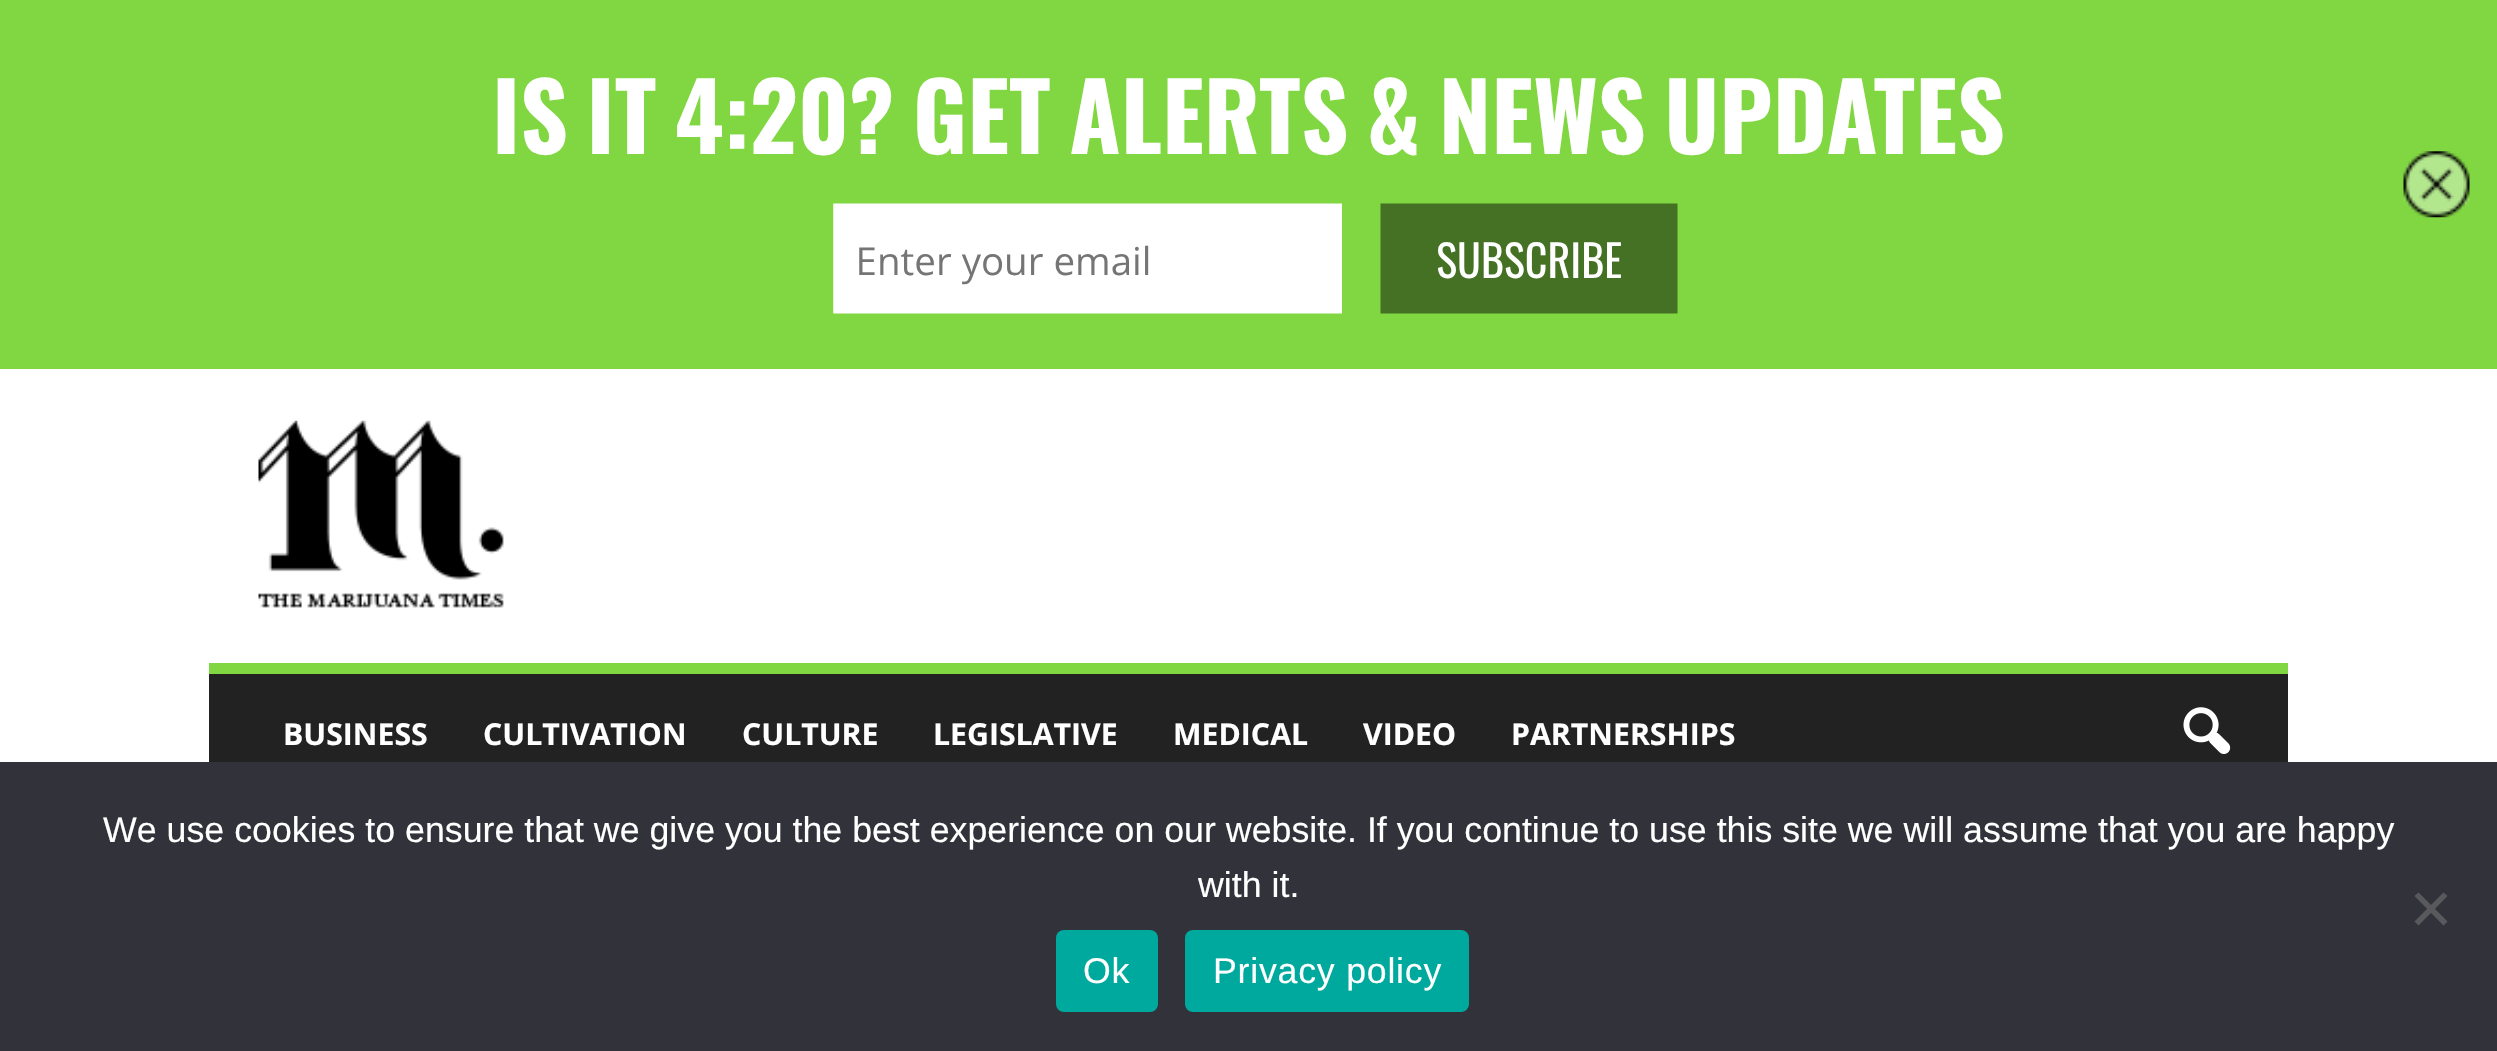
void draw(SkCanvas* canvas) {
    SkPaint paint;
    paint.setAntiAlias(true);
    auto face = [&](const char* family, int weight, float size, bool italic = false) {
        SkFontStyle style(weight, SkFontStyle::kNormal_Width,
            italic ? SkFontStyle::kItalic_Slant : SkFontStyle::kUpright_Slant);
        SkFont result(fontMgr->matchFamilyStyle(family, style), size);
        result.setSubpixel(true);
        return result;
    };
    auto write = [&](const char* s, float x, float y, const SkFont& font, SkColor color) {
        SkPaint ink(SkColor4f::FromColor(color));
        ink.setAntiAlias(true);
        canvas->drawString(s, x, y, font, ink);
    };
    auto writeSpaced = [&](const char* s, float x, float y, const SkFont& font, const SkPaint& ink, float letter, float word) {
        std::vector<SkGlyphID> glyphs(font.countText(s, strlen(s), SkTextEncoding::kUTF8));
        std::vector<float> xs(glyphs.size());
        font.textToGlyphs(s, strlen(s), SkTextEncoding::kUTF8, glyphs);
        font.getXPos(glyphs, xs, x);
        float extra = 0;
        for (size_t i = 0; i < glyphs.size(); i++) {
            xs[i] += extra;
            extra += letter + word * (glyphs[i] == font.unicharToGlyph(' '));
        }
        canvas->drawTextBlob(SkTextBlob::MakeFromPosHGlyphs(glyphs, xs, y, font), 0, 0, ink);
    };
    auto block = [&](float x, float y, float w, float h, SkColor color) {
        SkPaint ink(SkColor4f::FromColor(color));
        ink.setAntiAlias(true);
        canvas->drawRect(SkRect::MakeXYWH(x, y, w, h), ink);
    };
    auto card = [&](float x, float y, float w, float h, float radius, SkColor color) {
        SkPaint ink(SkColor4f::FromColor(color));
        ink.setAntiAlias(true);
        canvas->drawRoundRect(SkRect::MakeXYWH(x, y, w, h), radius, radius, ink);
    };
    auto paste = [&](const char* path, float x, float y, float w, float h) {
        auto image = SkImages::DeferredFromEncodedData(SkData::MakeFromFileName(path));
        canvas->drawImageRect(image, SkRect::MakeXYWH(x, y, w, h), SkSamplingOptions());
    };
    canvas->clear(SK_ColorWHITE);
    paste("pic1.png", 0, 0, 2497, 369);
    paste("pic2.png", 258, 420, 246, 188);
    block(209, 674, 2079, 88, SkColorSetRGB(34, 34, 34));
    block(209, 663, 2079, 11, SkColorSetRGB(129, 215, 66));
    auto kFont1 = face("Open Sans", 700, 30.25f);
    write("BUSINESS", 283, 745, kFont1, SK_ColorWHITE);
    write("CULTIVATION", 483, 745, kFont1, SK_ColorWHITE);
    write("CULTURE", 742, 745, kFont1, SK_ColorWHITE);
    write("LEGISLATIVE", 933, 745, kFont1, SK_ColorWHITE);
    write("MEDICAL", 1173, 745, kFont1, SK_ColorWHITE);
    write("VIDEO", 1363, 745, kFont1, SK_ColorWHITE);
    write("PARTNERSHIPS", 1511, 745, kFont1, SK_ColorWHITE);
    paste("pic3.png", 2183, 707, 48, 47);
    block(0, 762, 2497, 289, SkColorSetRGB(50, 50, 58));
    auto kFont2 = face("Liberation Sans", 400, 35.75f);
    write("We use cookies to ensure that we give you the best experience on our website. If you continue to use this site we will assume that you are happy", 103, 842, kFont2, SK_ColorWHITE);
    write("with it.", 1198, 897, kFont2, SK_ColorWHITE);
    paint.setColor(SkColorSetRGB(89, 89, 93));
    canvas->drawPath(SkPathBuilder().moveTo(2443.5f, 892.5f).lineTo(2447.5f, 896).lineTo(2418.5f, 925.5f).lineTo(2414.5f, 921.5f).close().detach(), paint);
    canvas->drawPath(SkPathBuilder().moveTo(2414.5f, 896).lineTo(2418.5f, 892.5f).lineTo(2447.5f, 921.5f).lineTo(2443.5f, 925.5f).close().detach(), paint);
    card(1056, 930, 102, 82, 8, SkColorSetRGB(0, 169, 157));
    paint.setColor(SK_ColorWHITE);
    writeSpaced("Ok", 1083, 983, kFont2, paint, 0.75f, 0);
    card(1185, 930, 284, 82, 8, SkColorSetRGB(0, 169, 157));
    writeSpaced("Privacy policy", 1213, 983, kFont2, paint, 0.75f, 0);
}
